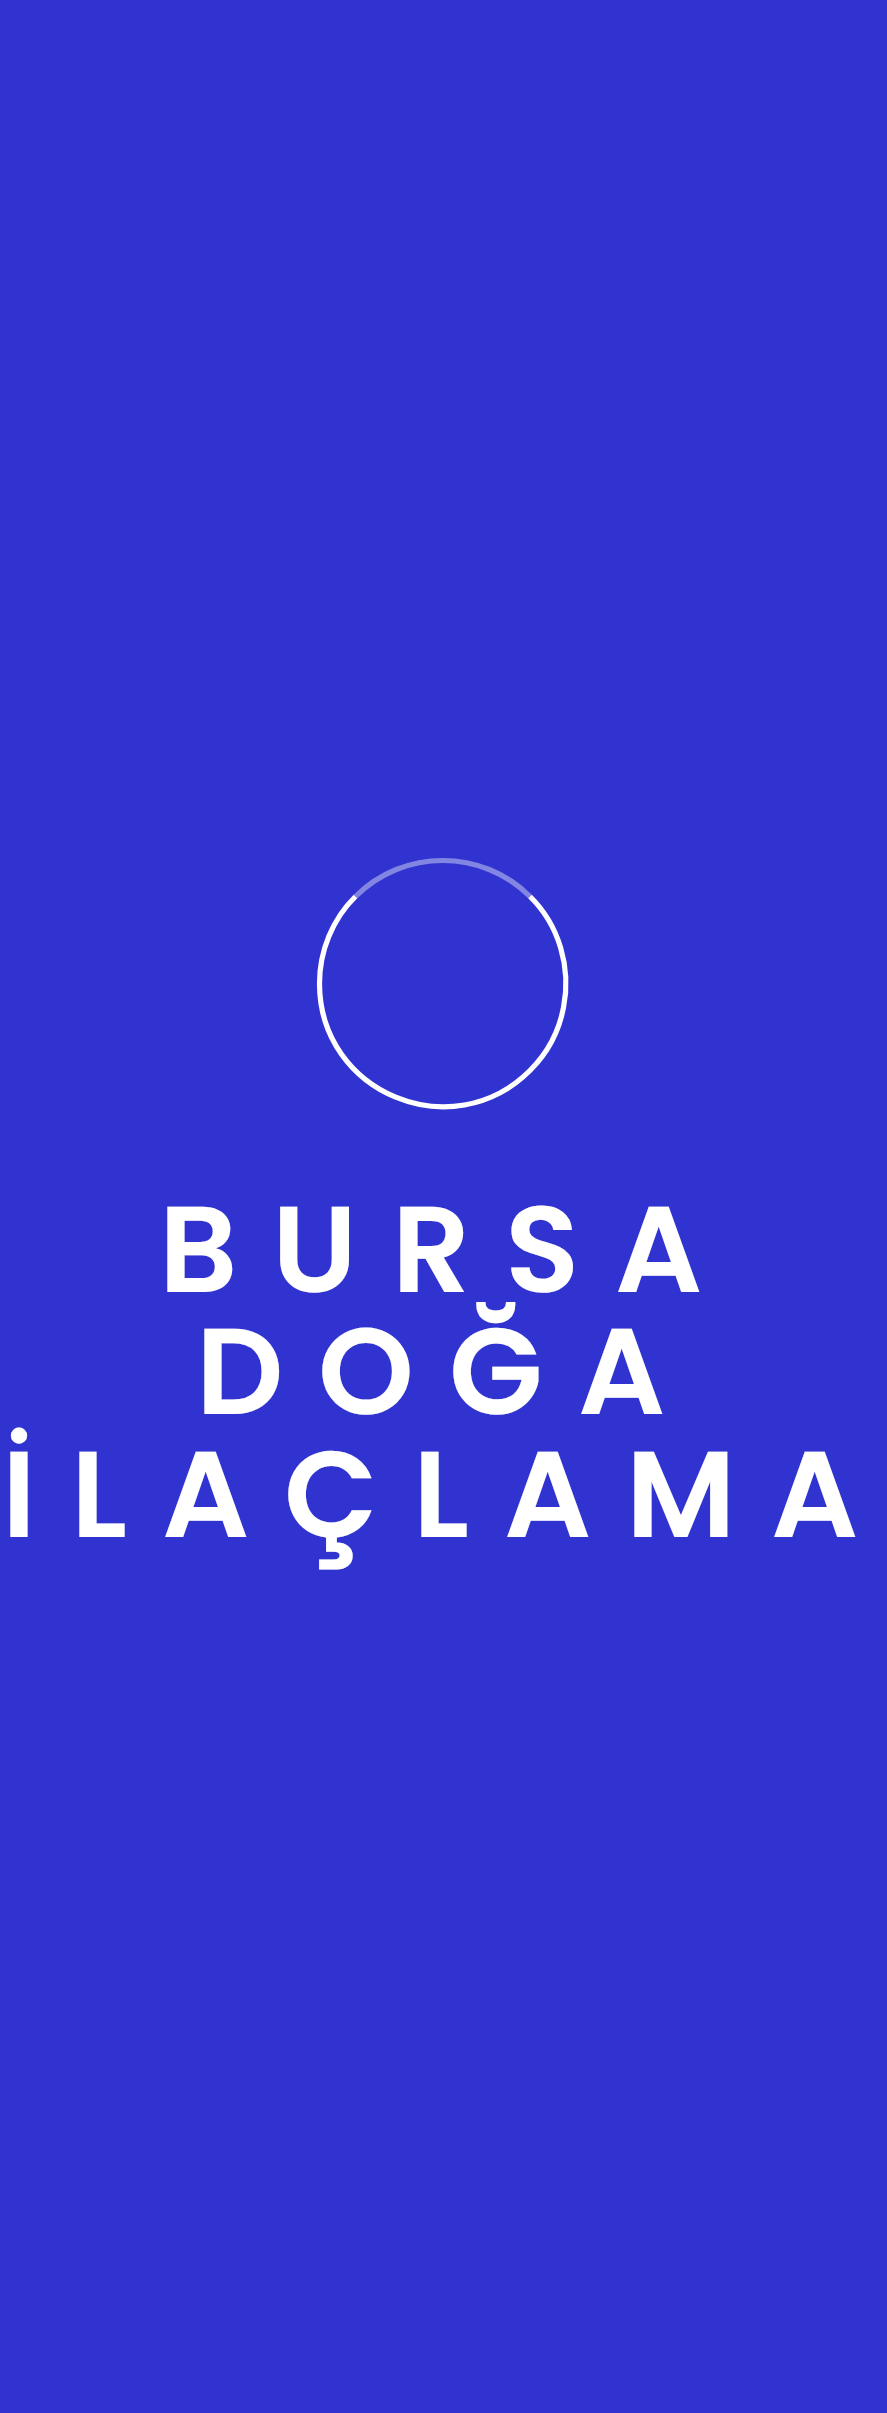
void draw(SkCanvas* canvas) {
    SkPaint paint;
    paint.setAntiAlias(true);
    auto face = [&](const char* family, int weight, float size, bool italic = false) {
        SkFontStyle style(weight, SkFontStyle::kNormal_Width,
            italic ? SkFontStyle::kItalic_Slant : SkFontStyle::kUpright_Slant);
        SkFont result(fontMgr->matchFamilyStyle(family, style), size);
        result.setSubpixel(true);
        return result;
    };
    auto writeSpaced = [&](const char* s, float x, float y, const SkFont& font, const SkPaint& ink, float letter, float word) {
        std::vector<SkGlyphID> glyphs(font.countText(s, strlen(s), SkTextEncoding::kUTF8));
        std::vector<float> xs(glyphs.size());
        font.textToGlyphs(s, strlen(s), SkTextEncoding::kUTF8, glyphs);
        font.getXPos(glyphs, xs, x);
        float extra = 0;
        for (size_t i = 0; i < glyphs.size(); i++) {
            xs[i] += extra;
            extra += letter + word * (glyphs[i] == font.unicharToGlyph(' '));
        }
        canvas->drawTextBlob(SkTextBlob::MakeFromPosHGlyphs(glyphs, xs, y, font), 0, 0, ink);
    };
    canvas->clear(SkColorSetRGB(49, 51, 208));
    paint.setStyle(SkPaint::kStroke_Style);
    paint.setStrokeWidth(5.2f);
    paint.setColor(SkColorSetRGB(131, 133, 227));
    canvas->drawPath(SkPathBuilder().moveTo(355.5f, 896.5f).cubicTo(403.5f, 848.5f, 482, 848.5f, 530, 896.5f).detach(), paint);
    paint.setColor(SK_ColorWHITE);
    canvas->drawPath(SkPathBuilder().moveTo(530, 896.5f).cubicTo(559, 925, 571.5f, 967.5f, 563.5f, 1007.5f).cubicTo(559, 1031.5f, 547, 1053.5f, 530, 1070.5f).cubicTo(452.5f, 1148, 319.5f, 1093, 319.5f, 983.5f).cubicTo(319.5f, 951, 332.5f, 919, 355.5f, 896.5f).detach(), paint);
    auto kFont1 = face("Poppins", 600, 122);
    paint.setStyle(SkPaint::kFill_Style);
    writeSpaced("B", 159, 1292, kFont1, paint, 26, 0);
    writeSpaced("U", 272, 1292, kFont1, paint, 26, 0);
    writeSpaced("R", 392, 1292, kFont1, paint, 26, 0);
    writeSpaced("S", 505, 1292, kFont1, paint, 26, 0);
    writeSpaced("A", 615, 1292, kFont1, paint, 26, 0);
    writeSpaced("D", 196, 1414, kFont1, paint, 26, 0);
    writeSpaced("O", 318, 1414, kFont1, paint, 26, 0);
    writeSpaced("Ğ", 449, 1414, kFont1, paint, 26, 0);
    writeSpaced("A", 578, 1414, kFont1, paint, 26, 0);
    writeSpaced("İ", 2, 1537, kFont1, paint, 26, 0);
    writeSpaced("L", 71, 1537, kFont1, paint, 26, 0);
    writeSpaced("A", 162, 1537, kFont1, paint, 26, 0);
    writeSpaced("Ç", 284, 1537, kFont1, paint, 26, 0);
    writeSpaced("L", 413, 1537, kFont1, paint, 26, 0);
    writeSpaced("A", 504, 1537, kFont1, paint, 26, 0);
    writeSpaced("M", 626, 1537, kFont1, paint, 26, 0);
    writeSpaced("A", 771, 1537, kFont1, paint, 26, 0);
}
